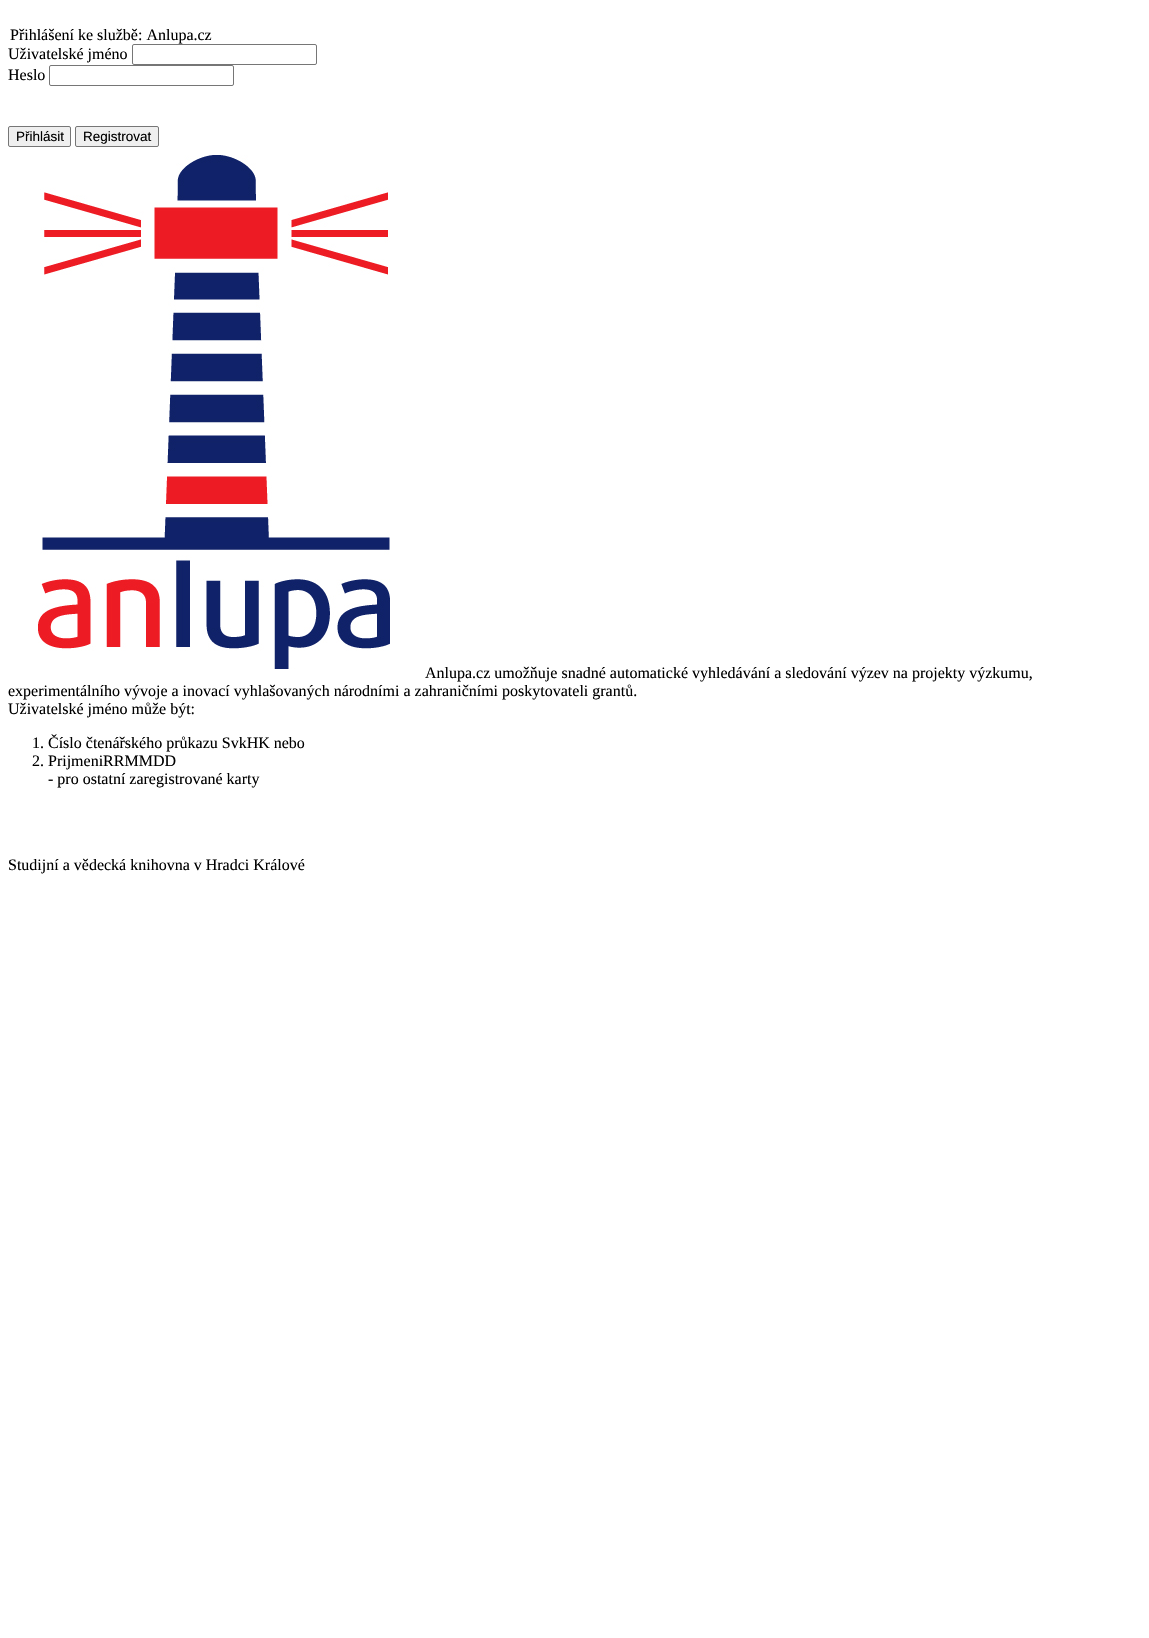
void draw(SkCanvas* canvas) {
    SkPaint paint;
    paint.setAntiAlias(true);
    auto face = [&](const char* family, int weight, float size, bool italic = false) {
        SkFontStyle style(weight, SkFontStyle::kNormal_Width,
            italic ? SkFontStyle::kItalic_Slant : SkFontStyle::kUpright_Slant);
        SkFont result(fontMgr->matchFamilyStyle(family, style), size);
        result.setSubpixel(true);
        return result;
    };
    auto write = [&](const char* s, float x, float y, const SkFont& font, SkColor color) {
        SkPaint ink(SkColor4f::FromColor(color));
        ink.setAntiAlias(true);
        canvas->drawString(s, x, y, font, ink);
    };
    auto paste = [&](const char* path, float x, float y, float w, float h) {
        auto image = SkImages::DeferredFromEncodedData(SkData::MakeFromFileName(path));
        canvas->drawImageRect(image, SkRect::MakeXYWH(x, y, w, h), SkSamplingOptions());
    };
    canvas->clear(SK_ColorWHITE);
    auto kFont1 = face("Liberation Serif", 400, 16);
    write("Přihlášení ke službě: Anlupa.cz", 10, 40, kFont1, SK_ColorBLACK);
    write("Uživatelské jméno", 8, 59, kFont1, SK_ColorBLACK);
    paint.setStyle(SkPaint::kStroke_Style);
    paint.setStrokeWidth(1);
    paint.setColor(SkColorSetRGB(118, 118, 118));
    canvas->drawRoundRect(SkRect::MakeXYWH(132.5f, 44.5f, 184, 20), 1.5f, 1.5f, paint);
    write("Heslo", 8, 80, kFont1, SK_ColorBLACK);
    canvas->drawRoundRect(SkRect::MakeXYWH(49.5f, 65.5f, 184, 20), 1.5f, 1.5f, paint);
    paint.setStyle(SkPaint::kFill_Style);
    paint.setColor(SkColorSetRGB(239, 239, 239));
    canvas->drawRoundRect(SkRect::MakeXYWH(8.5f, 126.5f, 62, 20), 1.5f, 1.5f, paint);
    paint.setStyle(SkPaint::kStroke_Style);
    paint.setColor(SkColorSetRGB(118, 118, 118));
    canvas->drawRoundRect(SkRect::MakeXYWH(8.5f, 126.5f, 62, 20), 1.5f, 1.5f, paint);
    auto kFont2 = face("Liberation Sans", 400, 13.5f);
    write("Přihlásit", 16, 141, kFont2, SK_ColorBLACK);
    paint.setStyle(SkPaint::kFill_Style);
    paint.setColor(SkColorSetRGB(239, 239, 239));
    canvas->drawRoundRect(SkRect::MakeXYWH(75.5f, 126.5f, 83, 20), 1.5f, 1.5f, paint);
    paint.setStyle(SkPaint::kStroke_Style);
    paint.setColor(SkColorSetRGB(118, 118, 118));
    canvas->drawRoundRect(SkRect::MakeXYWH(75.5f, 126.5f, 83, 20), 1.5f, 1.5f, paint);
    write("Registrovat", 83, 141, kFont2, SK_ColorBLACK);
    paste("pic1.png", 38, 155, 352, 514);
    write("Anlupa.cz umožňuje snadné automatické vyhledávání a sledování výzev na projekty výzkumu,", 425, 678, kFont1, SK_ColorBLACK);
    write("experimentálního vývoje a inovací vyhlašovaných národními a zahraničními poskytovateli grantů.", 8, 696, kFont1, SK_ColorBLACK);
    write("Uživatelské jméno může být:", 8, 714, kFont1, SK_ColorBLACK);
    write("1. Číslo čtenářského průkazu SvkHK nebo", 32, 748, kFont1, SK_ColorBLACK);
    write("2. PrijmeniRRMMDD", 32, 766, kFont1, SK_ColorBLACK);
    write("- pro ostatní zaregistrované karty", 48, 784, kFont1, SK_ColorBLACK);
    write("Studijní a vědecká knihovna v Hradci Králové", 8, 870, kFont1, SK_ColorBLACK);
}
